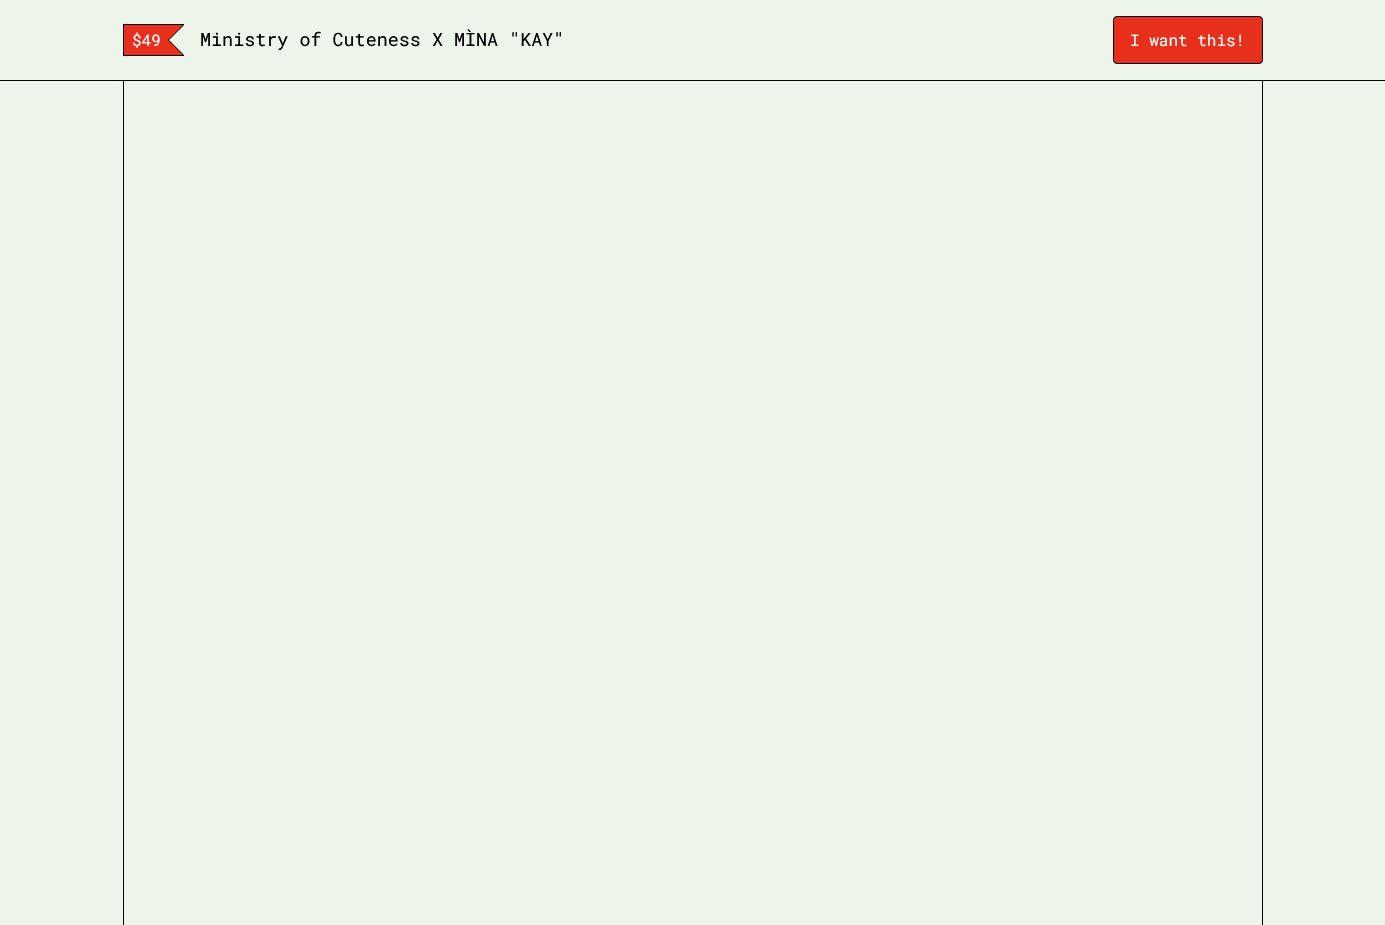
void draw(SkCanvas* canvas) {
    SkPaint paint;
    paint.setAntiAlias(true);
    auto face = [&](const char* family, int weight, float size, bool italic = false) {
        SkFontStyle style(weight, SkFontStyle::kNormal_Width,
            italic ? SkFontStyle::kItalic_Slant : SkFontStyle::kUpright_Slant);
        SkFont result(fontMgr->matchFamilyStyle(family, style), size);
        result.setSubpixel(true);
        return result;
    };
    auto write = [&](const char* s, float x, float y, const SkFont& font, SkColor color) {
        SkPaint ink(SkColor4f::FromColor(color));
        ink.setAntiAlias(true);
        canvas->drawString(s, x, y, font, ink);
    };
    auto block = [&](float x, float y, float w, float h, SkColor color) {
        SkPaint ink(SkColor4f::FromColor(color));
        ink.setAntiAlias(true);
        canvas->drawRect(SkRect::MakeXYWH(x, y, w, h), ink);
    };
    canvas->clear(SkColorSetRGB(237, 244, 234));
    paint.setStyle(SkPaint::kStroke_Style);
    paint.setStrokeWidth(1);
    paint.setColor(SK_ColorBLACK);
    canvas->drawRect(SkRect::MakeXYWH(123.5f, 64.5f, 1139, 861), paint);
    block(0, 80, 1385, 1, SK_ColorBLACK);
    block(123, 64, 1140, 16, SkColorSetRGB(237, 244, 234));
    block(123, 24, 61, 1, SK_ColorBLACK);
    block(123, 55, 61, 1, SK_ColorBLACK);
    block(123, 24, 1, 32, SK_ColorBLACK);
    block(124, 25, 44, 30, SkColorSetRGB(231, 48, 28));
    paint.setStyle(SkPaint::kFill_Style);
    canvas->drawPath(SkPathBuilder().moveTo(168, 25).lineTo(184, 25).lineTo(169, 40).close().moveTo(184, 55).lineTo(168, 55).lineTo(169, 40).close().detach(), paint);
    block(168, 39, 1, 2, SK_ColorBLACK);
    paint.setColor(SkColorSetRGB(231, 48, 28));
    canvas->drawPath(SkPathBuilder().moveTo(167, 25).lineTo(183, 25).lineTo(168, 40).close().moveTo(183, 55).lineTo(167, 55).lineTo(168, 40).close().detach(), paint);
    auto kFont1 = face("Roboto Mono", 400, 16);
    write("$49", 132, 46, kFont1, SK_ColorWHITE);
    auto kFont2 = face("Roboto Mono", 400, 18.4f);
    write("Ministry of Cuteness X MÌNA \"KAY\"", 200, 46, kFont2, SK_ColorBLACK);
    canvas->drawRoundRect(SkRect::MakeXYWH(1113.5f, 16.5f, 149, 47), 3.5f, 3.5f, paint);
    paint.setStyle(SkPaint::kStroke_Style);
    paint.setColor(SK_ColorBLACK);
    canvas->drawRoundRect(SkRect::MakeXYWH(1113.5f, 16.5f, 149, 47), 3.5f, 3.5f, paint);
    write("I want this!", 1130, 46, kFont1, SK_ColorWHITE);
}
